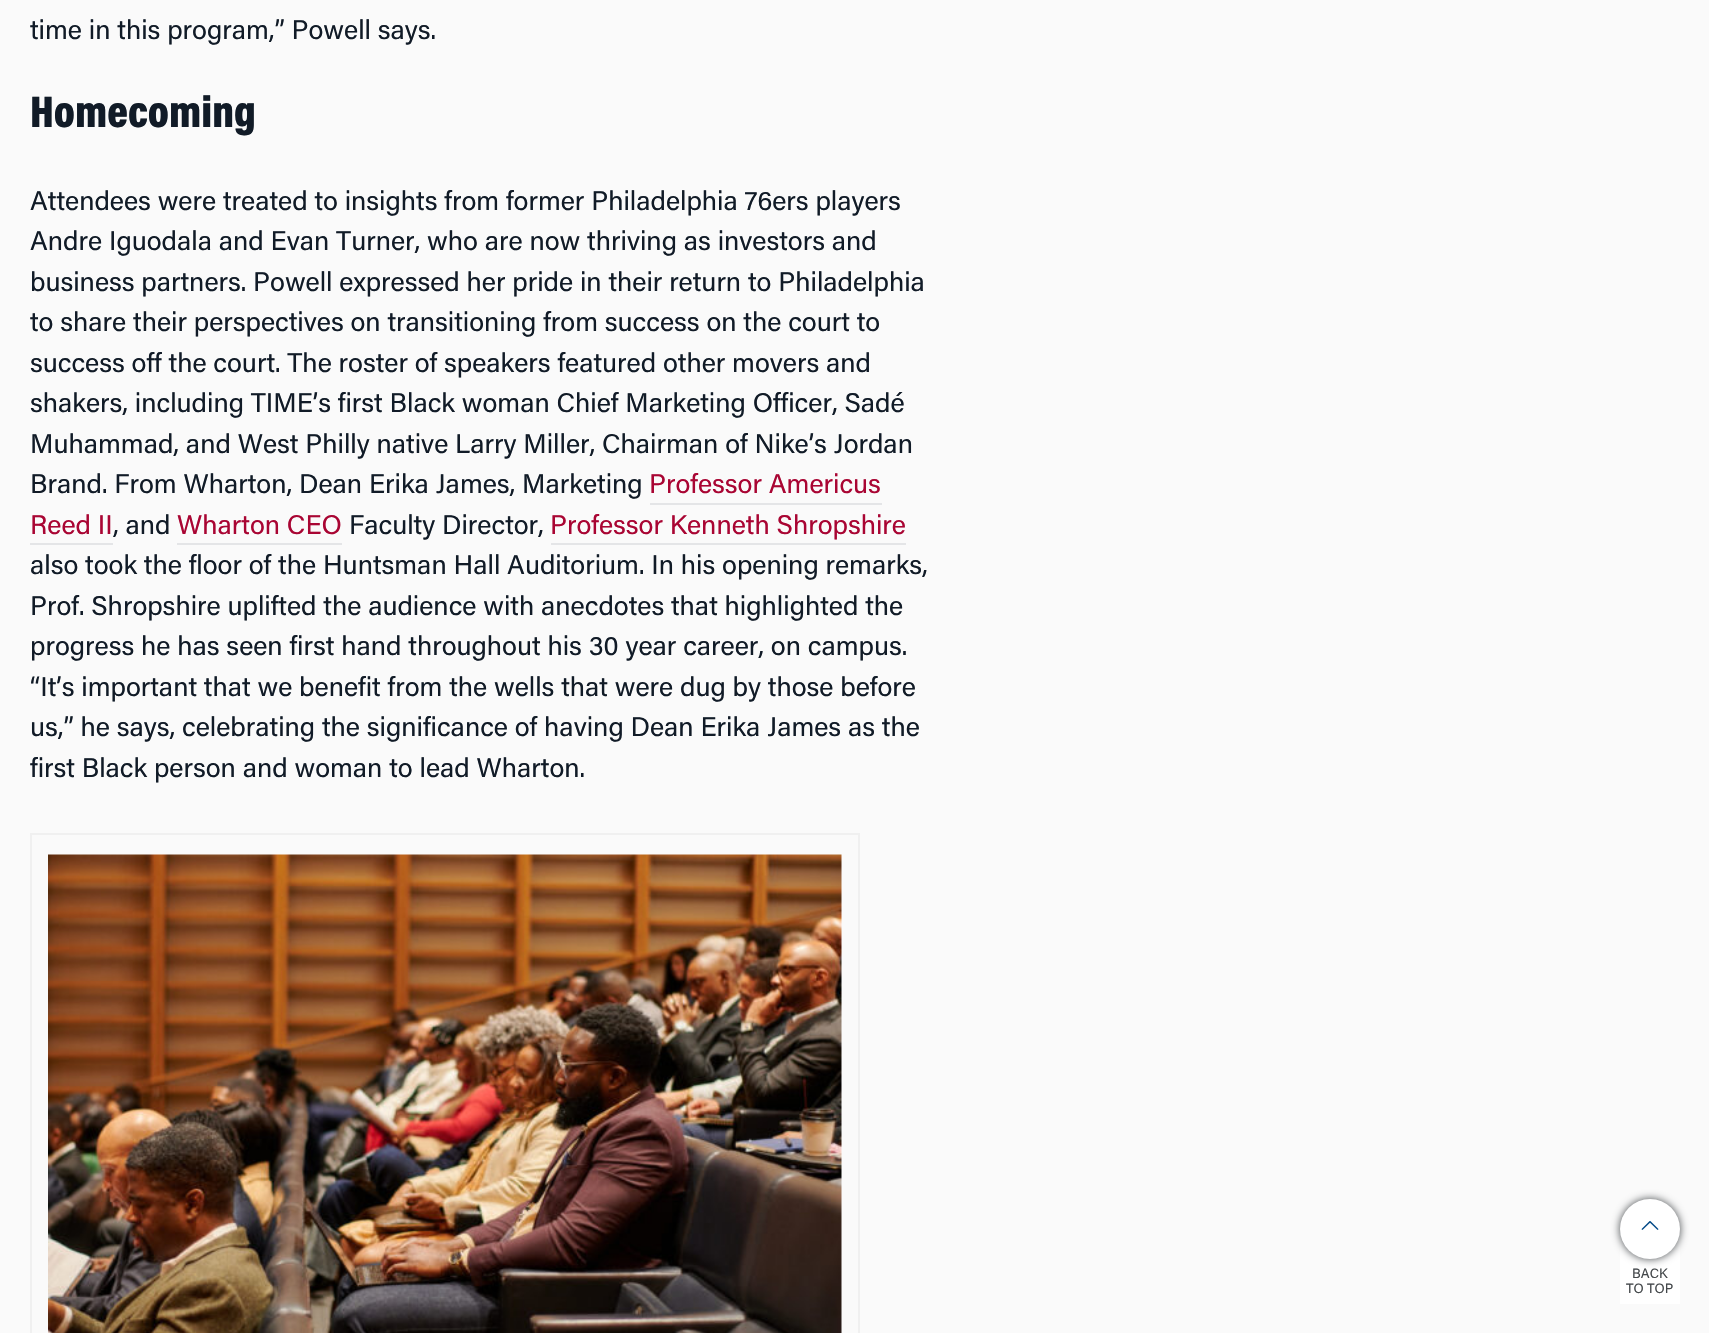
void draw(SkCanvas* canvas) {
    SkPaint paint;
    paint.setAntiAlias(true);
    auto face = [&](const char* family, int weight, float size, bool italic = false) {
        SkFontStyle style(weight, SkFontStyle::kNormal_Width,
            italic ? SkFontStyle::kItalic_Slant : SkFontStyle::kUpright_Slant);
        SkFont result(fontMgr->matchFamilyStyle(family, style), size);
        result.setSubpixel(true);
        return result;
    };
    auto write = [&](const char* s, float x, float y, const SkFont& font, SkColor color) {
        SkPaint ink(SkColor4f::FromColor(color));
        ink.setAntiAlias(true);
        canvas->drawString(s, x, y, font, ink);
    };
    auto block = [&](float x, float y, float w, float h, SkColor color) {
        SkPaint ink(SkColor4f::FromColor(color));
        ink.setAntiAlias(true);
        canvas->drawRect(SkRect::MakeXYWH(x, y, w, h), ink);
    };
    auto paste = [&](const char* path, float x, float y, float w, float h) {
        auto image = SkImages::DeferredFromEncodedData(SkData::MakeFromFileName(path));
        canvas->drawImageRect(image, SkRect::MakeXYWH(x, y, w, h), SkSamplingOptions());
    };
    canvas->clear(SkColorSetRGB(250, 250, 250));
    auto kFont1 = face("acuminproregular", 400, 27);
    write("time in this program,” Powell says.", 30, 39, kFont1, SkColorSetRGB(17, 27, 39));
    auto kFont2 = face("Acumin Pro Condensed", 900, 45);
    write("Homecoming", 30, 127, kFont2, SkColorSetRGB(17, 27, 39));
    write("Attendees were treated to insights from former Philadelphia 76ers players", 30, 210, kFont1, SkColorSetRGB(17, 27, 39));
    write("Andre Iguodala and Evan Turner, who are now thriving as investors and", 30, 250, kFont1, SkColorSetRGB(17, 27, 39));
    write("business partners. Powell expressed her pride in their return to Philadelphia", 30, 291, kFont1, SkColorSetRGB(17, 27, 39));
    write("to share their perspectives on transitioning from success on the court to", 30, 331, kFont1, SkColorSetRGB(17, 27, 39));
    write("success off the court. The roster of speakers featured other movers and", 30, 372, kFont1, SkColorSetRGB(17, 27, 39));
    write("shakers, including TIME’s first Black woman Chief Marketing Officer, Sadé", 30, 412, kFont1, SkColorSetRGB(17, 27, 39));
    write("Muhammad, and West Philly native Larry Miller, Chairman of Nike’s Jordan", 30, 453, kFont1, SkColorSetRGB(17, 27, 39));
    write("Brand. From Wharton, Dean Erika James, Marketing", 30, 493, kFont1, SkColorSetRGB(17, 27, 39));
    write("Professor Americus", 649, 493, kFont1, SkColorSetRGB(169, 5, 51));
    block(650, 503, 232, 2, SkColorSetRGB(228, 229, 231));
    write("Reed II", 30, 534, kFont1, SkColorSetRGB(169, 5, 51));
    block(30, 543, 83, 2, SkColorSetRGB(228, 229, 231));
    write(", and", 113, 534, kFont1, SkColorSetRGB(17, 27, 39));
    write("Wharton CEO", 177, 534, kFont1, SkColorSetRGB(169, 5, 51));
    block(177, 543, 165, 2, SkColorSetRGB(228, 229, 231));
    write("Faculty Director,", 349, 534, kFont1, SkColorSetRGB(17, 27, 39));
    write("Professor Kenneth Shropshire", 550, 534, kFont1, SkColorSetRGB(169, 5, 51));
    block(551, 543, 355, 2, SkColorSetRGB(228, 229, 231));
    write("also took the floor of the Huntsman Hall Auditorium. In his opening remarks,", 30, 574, kFont1, SkColorSetRGB(17, 27, 39));
    write("Prof. Shropshire uplifted the audience with anecdotes that highlighted the", 30, 615, kFont1, SkColorSetRGB(17, 27, 39));
    write("progress he has seen first hand throughout his 30 year career, on campus.", 30, 655, kFont1, SkColorSetRGB(17, 27, 39));
    write("“It’s important that we benefit from the wells that were dug by those before", 30, 696, kFont1, SkColorSetRGB(17, 27, 39));
    write("us,” he says, celebrating the significance of having Dean Erika James as the", 30, 736, kFont1, SkColorSetRGB(17, 27, 39));
    write("first Black person and woman to lead Wharton.", 30, 777, kFont1, SkColorSetRGB(17, 27, 39));
    paint.setStyle(SkPaint::kStroke_Style);
    paint.setStrokeWidth(2);
    paint.setColor(SkColorSetRGB(240, 240, 240));
    canvas->drawRect(SkRect::MakeXYWH(31, 834, 828, 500), paint);
    paste("pic1.png", 48, 854, 794, 479);
    block(1620, 1232, 60, 72, SK_ColorWHITE);
    paint.setStyle(SkPaint::kFill_Style);
    paint.setColor(SkColorSetRGB(68, 72, 75));
    paint.setMaskFilter(SkMaskFilter::MakeBlur(kNormal_SkBlurStyle, 4.5f));
    canvas->drawRoundRect(SkRect::MakeXYWH(1620, 1199, 60, 60), 30, 30, paint);
    paint.setMaskFilter(nullptr);
    paint.setColor(SK_ColorWHITE);
    canvas->drawCircle(1650, 1229, 30, paint);
    paste("pic2.png", 1641, 1221, 18, 9);
    auto kFont3 = face("acuminproregular", 400, 13.5f);
    write("BACK", 1632, 1278, kFont3, SkColorSetRGB(68, 72, 75));
    write("TO TOP", 1626, 1293, kFont3, SkColorSetRGB(68, 72, 75));
}
